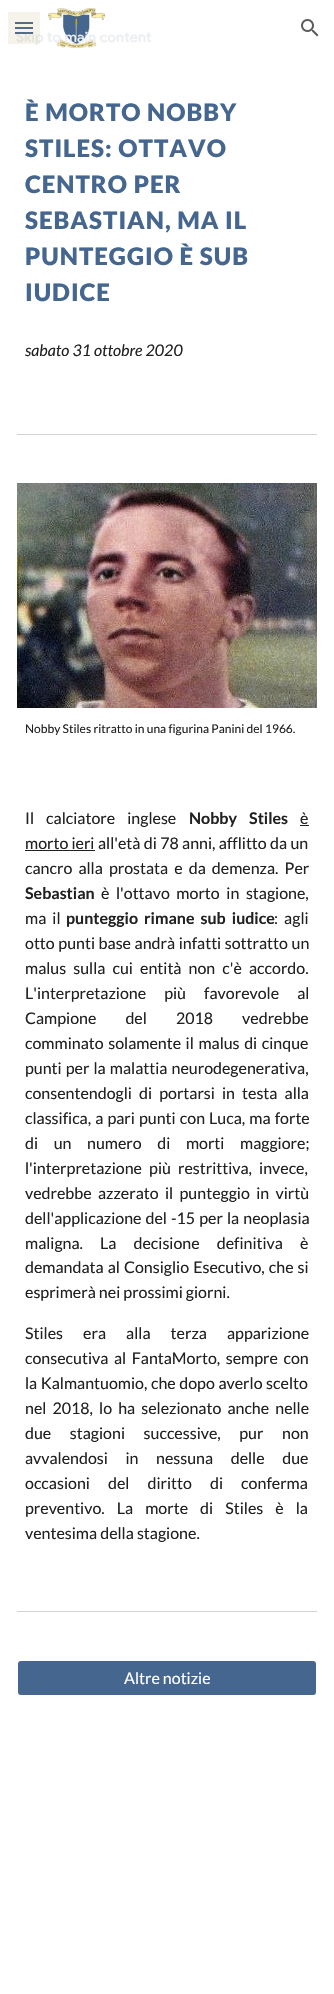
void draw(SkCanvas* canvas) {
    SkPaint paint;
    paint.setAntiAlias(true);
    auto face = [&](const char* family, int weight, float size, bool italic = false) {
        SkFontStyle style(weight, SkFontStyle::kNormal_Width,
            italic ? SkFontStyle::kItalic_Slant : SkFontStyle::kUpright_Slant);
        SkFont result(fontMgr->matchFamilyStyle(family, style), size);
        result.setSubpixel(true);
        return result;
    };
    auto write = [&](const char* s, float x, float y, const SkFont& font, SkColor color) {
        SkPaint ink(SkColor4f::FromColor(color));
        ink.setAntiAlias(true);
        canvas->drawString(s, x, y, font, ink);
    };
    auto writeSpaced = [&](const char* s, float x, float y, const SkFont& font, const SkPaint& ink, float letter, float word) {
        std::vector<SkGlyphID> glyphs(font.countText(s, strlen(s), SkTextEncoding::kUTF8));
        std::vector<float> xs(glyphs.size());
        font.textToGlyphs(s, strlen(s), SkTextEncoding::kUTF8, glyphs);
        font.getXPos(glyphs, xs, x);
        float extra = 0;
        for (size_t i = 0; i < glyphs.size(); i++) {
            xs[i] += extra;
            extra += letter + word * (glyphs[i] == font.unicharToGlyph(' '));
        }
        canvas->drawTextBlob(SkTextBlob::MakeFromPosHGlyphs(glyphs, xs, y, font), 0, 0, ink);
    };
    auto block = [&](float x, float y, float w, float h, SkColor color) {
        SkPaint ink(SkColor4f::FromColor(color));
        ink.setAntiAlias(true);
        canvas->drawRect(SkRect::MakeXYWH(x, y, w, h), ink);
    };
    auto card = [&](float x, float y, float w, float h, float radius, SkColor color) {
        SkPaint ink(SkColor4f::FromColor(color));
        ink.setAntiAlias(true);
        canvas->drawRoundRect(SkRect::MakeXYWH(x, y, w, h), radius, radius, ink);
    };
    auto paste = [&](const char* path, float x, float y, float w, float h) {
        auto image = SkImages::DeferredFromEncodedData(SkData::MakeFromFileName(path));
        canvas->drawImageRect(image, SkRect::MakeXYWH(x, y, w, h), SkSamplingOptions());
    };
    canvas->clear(SK_ColorWHITE);
    paste("pic1.png", 48, 8, 58, 41);
    auto kFont1 = face("Google Sans", 500, 14);
    paint.setColor(SkColorSetRGB(234, 237, 241));
    writeSpaced("Skip to main content", 16, 42, kFont1, paint, 0.1f, 0);
    block(15, 22, 18, 2, SkColorSetRGB(69, 102, 142));
    block(15, 27, 18, 2, SkColorSetRGB(69, 102, 142));
    block(15, 32, 18, 2, SkColorSetRGB(69, 102, 142));
    block(8, 12, 32, 32, SkColorSetARGB(31, 183, 153, 81));
    paste("pic2.png", 301, 19, 18, 18);
    auto kFont2 = face("Lato", 900, 24);
    paint.setColor(SkColorSetRGB(69, 102, 142));
    writeSpaced("È MORTO NOBBY", 25, 121, kFont2, paint, 1, 0);
    writeSpaced("STILES: OTTAVO", 25, 157, kFont2, paint, 1, 0);
    writeSpaced("CENTRO PER", 25, 193, kFont2, paint, 1, 0);
    writeSpaced("SEBASTIAN, MA IL", 25, 229, kFont2, paint, 1, 0);
    writeSpaced("PUNTEGGIO È SUB", 25, 265, kFont2, paint, 1, 0);
    writeSpaced("IUDICE", 25, 301, kFont2, paint, 1, 0);
    auto kFont3 = face("Lato", 400, 16, true);
    write("sabato 31 ottobre 2020", 25, 356, kFont3, SkColorSetRGB(33, 33, 33));
    block(17, 434, 300, 1, SkColorSetRGB(211, 211, 211));
    paste("pic3.png", 17, 483, 300, 225);
    auto kFont4 = face("Lato", 400, 12);
    write("Nobby Stiles ritratto in una figurina Panini del 1966.", 25, 733, kFont4, SkColorSetRGB(33, 33, 33));
    auto kFont5 = face("Lato", 400, 16);
    paint.setColor(SkColorSetRGB(33, 33, 33));
    writeSpaced("Il calciatore inglese", 25, 824, kFont5, paint, 0, 9);
    auto kFont6 = face("Lato", 700, 16);
    writeSpaced("Nobby Stiles", 189, 824, kFont6, paint, 0, 9);
    write("è", 300, 824, kFont5, SkColorSetRGB(33, 33, 33));
    block(300, 825, 9, 1, SkColorSetRGB(33, 33, 33));
    write("morto ieri", 25, 849, kFont5, SkColorSetRGB(33, 33, 33));
    block(25, 850, 70, 1, SkColorSetRGB(33, 33, 33));
    writeSpaced("all'età di 78 anni, afflitto da un", 98, 849, kFont5, paint, 0, 0.25f);
    writeSpaced("cancro alla prostata e da demenza. Per", 25, 874, kFont5, paint, 0, 3);
    write("Sebastian", 25, 899, kFont6, SkColorSetRGB(33, 33, 33));
    writeSpaced("è l'ottavo morto in stagione,", 101, 899, kFont5, paint, 0, 3.5f);
    writeSpaced("ma il", 25, 924, kFont5, paint, 0, 3);
    writeSpaced("punteggio rimane sub iudice", 66, 924, kFont6, paint, 0, 3);
    writeSpaced(": agli", 274, 924, kFont5, paint, 0, 3);
    writeSpaced("otto punti base andrà infatti sottratto un", 25, 949, kFont5, paint, 0, 0.5f);
    writeSpaced("malus sulla cui entità non c'è accordo.", 25, 974, kFont5, paint, 0, 4);
    writeSpaced("L'interpretazione più favorevole al", 25, 999, kFont5, paint, 0, 15);
    writeSpaced("Campione del 2018 vedrebbe", 25, 1024, kFont5, paint, 0, 26);
    writeSpaced("comminato solamente il malus di cinque", 25, 1049, kFont5, paint, 0, 1.5f);
    writeSpaced("punti per la malattia neurodegenerativa,", 25, 1074, kFont5, paint, 0, 1);
    writeSpaced("consentendogli di portarsi in testa alla", 25, 1099, kFont5, paint, 0, 4);
    writeSpaced("classifica, a pari punti con Luca, ma forte", 25, 1124, kFont5, paint, 0, 1);
    writeSpaced("di un numero di morti maggiore;", 25, 1149, kFont5, paint, 0, 12.5f);
    writeSpaced("l'interpretazione più restrittiva, invece,", 25, 1174, kFont5, paint, 0, 4);
    writeSpaced("vedrebbe azzerato il punteggio in virtù", 25, 1199, kFont5, paint, 0, 3.25f);
    writeSpaced("dell'applicazione del -15 per la neoplasia", 25, 1224, kFont5, paint, 0, 1);
    writeSpaced("maligna. La decisione definitiva è", 25, 1249, kFont5, paint, 0, 14);
    writeSpaced("demandata al Consiglio Esecutivo, che si", 25, 1273, kFont5, paint, 0, 1);
    write("esprimerà nei prossimi giorni.", 25, 1298, kFont5, SkColorSetRGB(33, 33, 33));
    writeSpaced("Stiles era alla terza apparizione", 25, 1339, kFont5, paint, 0, 17);
    writeSpaced("consecutiva al FantaMorto, sempre con", 25, 1364, kFont5, paint, 0, 2.5f);
    writeSpaced("la Kalmantuomio, che dopo averlo scelto", 25, 1389, kFont5, paint, 0, 0.5f);
    writeSpaced("nel 2018, lo ha selezionato anche nelle", 25, 1414, kFont5, paint, 0, 3);
    writeSpaced("due stagioni successive, pur non", 25, 1439, kFont5, paint, 0, 15.5f);
    writeSpaced("avvalendosi in nessuna delle due", 25, 1464, kFont5, paint, 0, 14.5f);
    writeSpaced("occasioni del diritto di conferma", 25, 1489, kFont5, paint, 0, 15);
    writeSpaced("preventivo. La morte di Stiles è la", 25, 1514, kFont5, paint, 0, 9);
    write("ventesima della stagione.", 25, 1539, kFont5, SkColorSetRGB(33, 33, 33));
    block(17, 1611, 300, 1, SkColorSetRGB(211, 211, 211));
    card(18, 1661, 298, 34, 3, SkColorSetRGB(69, 102, 142));
    write("Altre notizie", 124, 1684, kFont5, SK_ColorWHITE);
}
